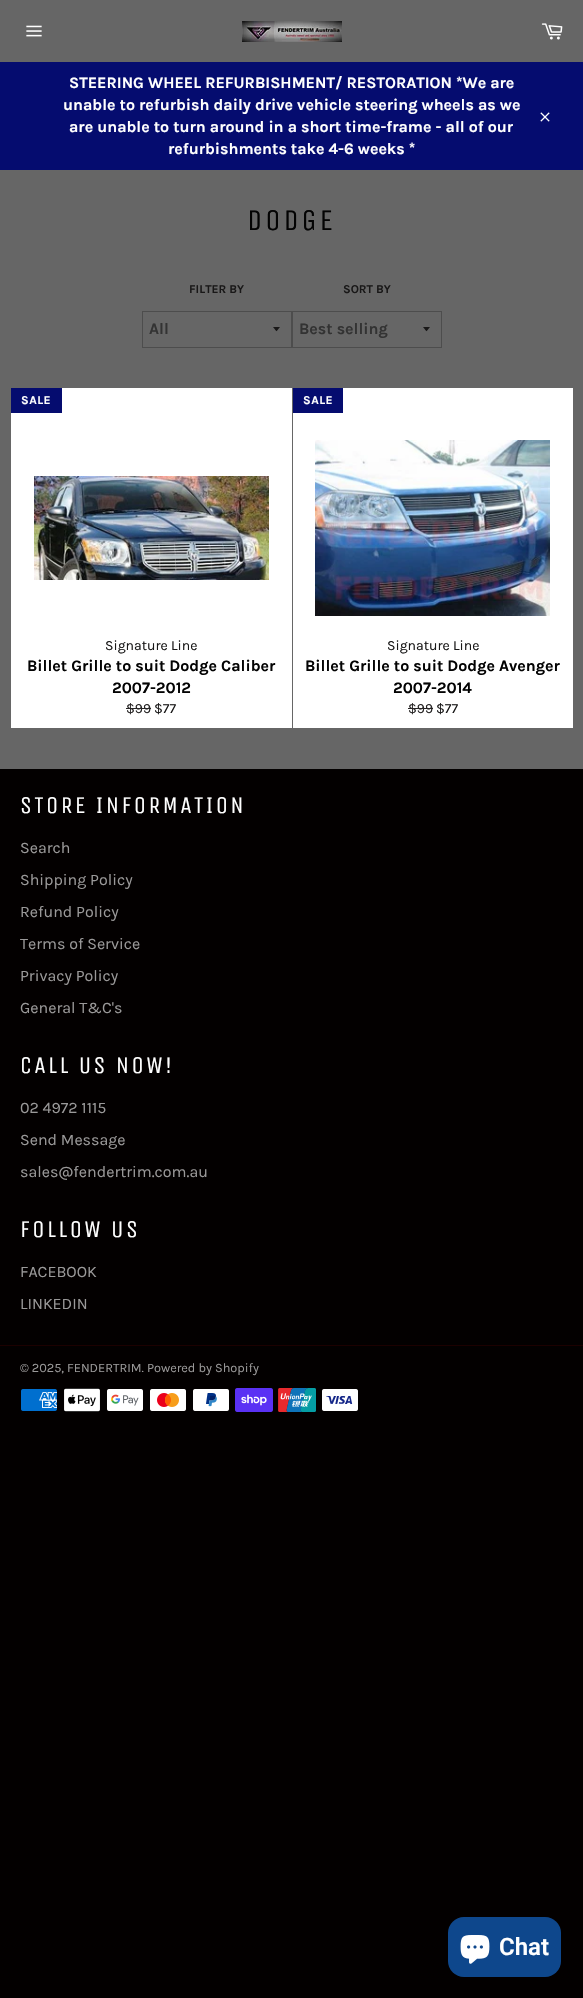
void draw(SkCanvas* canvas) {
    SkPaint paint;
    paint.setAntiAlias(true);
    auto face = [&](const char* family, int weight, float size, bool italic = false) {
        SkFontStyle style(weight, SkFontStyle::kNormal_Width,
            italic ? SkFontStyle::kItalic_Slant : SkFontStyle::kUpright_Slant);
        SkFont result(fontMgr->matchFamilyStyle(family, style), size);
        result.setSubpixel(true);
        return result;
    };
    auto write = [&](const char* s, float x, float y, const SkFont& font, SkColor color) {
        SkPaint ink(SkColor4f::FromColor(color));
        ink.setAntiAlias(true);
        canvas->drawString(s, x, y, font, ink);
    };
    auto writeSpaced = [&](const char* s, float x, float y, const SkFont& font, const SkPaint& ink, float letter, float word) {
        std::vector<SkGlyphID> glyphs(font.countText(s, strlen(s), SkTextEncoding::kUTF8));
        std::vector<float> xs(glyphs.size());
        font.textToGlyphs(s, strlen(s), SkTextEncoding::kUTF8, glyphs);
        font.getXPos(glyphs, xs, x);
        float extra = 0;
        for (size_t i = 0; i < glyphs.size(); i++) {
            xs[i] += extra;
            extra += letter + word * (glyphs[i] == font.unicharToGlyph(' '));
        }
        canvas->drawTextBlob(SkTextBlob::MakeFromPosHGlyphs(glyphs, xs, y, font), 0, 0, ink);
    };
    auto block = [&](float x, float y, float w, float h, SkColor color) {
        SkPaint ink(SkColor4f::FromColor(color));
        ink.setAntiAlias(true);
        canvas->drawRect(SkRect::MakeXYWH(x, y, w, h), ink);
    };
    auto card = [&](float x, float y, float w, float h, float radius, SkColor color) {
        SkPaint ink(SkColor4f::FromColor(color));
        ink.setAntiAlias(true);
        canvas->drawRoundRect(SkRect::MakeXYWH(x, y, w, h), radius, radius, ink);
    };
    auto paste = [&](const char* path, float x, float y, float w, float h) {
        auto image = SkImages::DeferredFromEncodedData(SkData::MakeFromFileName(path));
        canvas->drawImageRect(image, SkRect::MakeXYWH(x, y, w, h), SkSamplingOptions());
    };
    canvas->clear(SkColorSetRGB(3, 0, 0));
    block(0, 0, 583, 769, SkColorSetRGB(102, 102, 102));
    paste("pic1.png", 26, 25, 16, 12);
    paste("pic2.png", 242, 21, 100, 21);
    paste("pic3.png", 541, 23, 22, 17);
    block(0, 62, 583, 108, SkColorSetRGB(5, 12, 111));
    auto kFont1 = face("Karla", 700, 16);
    write("STEERING WHEEL REFURBISHMENT/ RESTORATION *We are", 69, 88, kFont1, SK_ColorWHITE);
    write("unable to refurbish daily drive vehicle steering wheels as we", 63, 110, kFont1, SK_ColorWHITE);
    write("are unable to turn around in a short time-frame - all of our", 69, 132, kFont1, SK_ColorWHITE);
    write("refurbishments take 4-6 weeks *", 168, 154, kFont1, SK_ColorWHITE);
    paste("pic4.png", 540, 112, 10, 10);
    auto kFont2 = face("Unica One", 400, 30);
    paint.setColor(SkColorSetRGB(3, 3, 3));
    writeSpaced("DODGE", 247, 230, kFont2, paint, 3, 0);
    auto kFont3 = face("Karla", 700, 12);
    write("FILTER BY", 189, 293, kFont3, SkColorSetRGB(25, 24, 24));
    paint.setColor(SkColorSetRGB(25, 24, 24));
    canvas->drawPath(SkPathBuilder().moveTo(273, 327).cubicTo(277.5f, 332.5f, 275.5f, 332.5f, 280, 327).close().detach(), paint);
    paint.setStyle(SkPaint::kStroke_Style);
    paint.setStrokeWidth(1);
    paint.setColor(SkColorSetRGB(77, 77, 77));
    canvas->drawRect(SkRect::MakeXYWH(142.5f, 311.5f, 149, 36), paint);
    write("All", 149, 334, kFont1, SkColorSetRGB(51, 51, 51));
    write("SORT BY", 343, 293, kFont3, SkColorSetRGB(25, 24, 24));
    paint.setStyle(SkPaint::kFill_Style);
    paint.setColor(SkColorSetRGB(25, 24, 24));
    canvas->drawPath(SkPathBuilder().moveTo(423, 327).cubicTo(427.5f, 332.5f, 425.5f, 332.5f, 430, 327).close().detach(), paint);
    paint.setStyle(SkPaint::kStroke_Style);
    paint.setColor(SkColorSetRGB(77, 77, 77));
    canvas->drawRect(SkRect::MakeXYWH(292.5f, 311.5f, 149, 36), paint);
    write("Best selling", 299, 334, kFont1, SkColorSetRGB(51, 51, 51));
    block(11, 388, 281, 340, SK_ColorWHITE);
    block(11, 388, 51, 25, SkColorSetRGB(5, 12, 111));
    paint.setStyle(SkPaint::kFill_Style);
    paint.setColor(SK_ColorWHITE);
    writeSpaced("SALE", 21, 404, kFont3, paint, 0.5f, 0);
    paste("pic5.png", 34, 476, 235, 104);
    auto kFont4 = face("Karla", 400, 14);
    write("Signature Line", 105, 650, kFont4, SkColorSetRGB(25, 24, 24));
    write("Billet Grille to suit Dodge Caliber", 27, 671, kFont1, SkColorSetRGB(3, 3, 3));
    write("2007-2012", 112, 693, kFont1, SkColorSetRGB(3, 3, 3));
    write("$99", 126, 713, kFont4, SkColorSetRGB(38, 36, 36));
    block(126, 708, 25, 1, SkColorSetRGB(38, 36, 36));
    write("$77", 154, 713, kFont4, SkColorSetRGB(25, 24, 24));
    block(293, 388, 280, 340, SK_ColorWHITE);
    block(293, 388, 50, 25, SkColorSetRGB(5, 12, 111));
    writeSpaced("SALE", 303, 404, kFont3, paint, 0.5f, 0);
    paste("pic6.png", 315, 440, 235, 176);
    write("Signature Line", 387, 650, kFont4, SkColorSetRGB(25, 24, 24));
    write("Billet Grille to suit Dodge Avenger", 305, 671, kFont1, SkColorSetRGB(3, 3, 3));
    write("2007-2014", 393, 693, kFont1, SkColorSetRGB(3, 3, 3));
    write("$99", 408, 713, kFont4, SkColorSetRGB(38, 36, 36));
    block(408, 708, 25, 1, SkColorSetRGB(38, 36, 36));
    write("$77", 436, 713, kFont4, SkColorSetRGB(25, 24, 24));
    auto kFont5 = face("Unica One", 400, 24);
    writeSpaced("STORE INFORMATION", 20, 813, kFont5, paint, 2.4f, 0);
    auto kFont6 = face("Karla", 400, 16);
    write("Search", 20, 853, kFont6, SkColorSetRGB(154, 153, 153));
    write("Shipping Policy", 20, 885, kFont6, SkColorSetRGB(154, 153, 153));
    write("Refund Policy", 20, 917, kFont6, SkColorSetRGB(154, 153, 153));
    write("Terms of Service", 20, 949, kFont6, SkColorSetRGB(154, 153, 153));
    write("Privacy Policy", 20, 981, kFont6, SkColorSetRGB(154, 153, 153));
    write("General T&C's", 20, 1013, kFont6, SkColorSetRGB(154, 153, 153));
    writeSpaced("CALL US NOW!", 20, 1073, kFont5, paint, 2.4f, 0);
    write("02 4972 1115", 20, 1113, kFont6, SkColorSetRGB(154, 153, 153));
    write("Send Message", 20, 1145, kFont6, SkColorSetRGB(154, 153, 153));
    write("sales@fendertrim.com.au", 20, 1177, kFont6, SkColorSetRGB(154, 153, 153));
    writeSpaced("FOLLOW US", 20, 1237, kFont5, paint, 2.4f, 0);
    write("FACEBOOK", 20, 1277, kFont6, SkColorSetRGB(154, 153, 153));
    write("LINKEDIN", 20, 1309, kFont6, SkColorSetRGB(154, 153, 153));
    block(0, 1345, 583, 1, SkColorSetRGB(28, 0, 0));
    auto kFont7 = face("Karla", 400, 12.75f);
    write("© 2025, FENDERTRIM. Powered by Shopify", 20, 1372, kFont7, SkColorSetRGB(154, 153, 153));
    paste("pic7.png", 21, 1389, 36, 22);
    paste("pic8.png", 64, 1388, 36, 24);
    paste("pic9.png", 107, 1389, 36, 22);
    paste("pic10.png", 150, 1389, 36, 22);
    paste("pic11.png", 193, 1389, 36, 22);
    paste("pic12.png", 235, 1388, 38, 24);
    paste("pic13.png", 278, 1388, 38, 24);
    paste("pic14.png", 322, 1389, 36, 22);
    card(448, 1917, 113, 60, 16, SkColorSetRGB(14, 71, 140));
    paste("pic15.png", 460, 1935, 30, 29);
    auto kFont8 = face("Roboto", 600, 24);
    write("Chat", 499, 1955, kFont8, SK_ColorWHITE);
}
